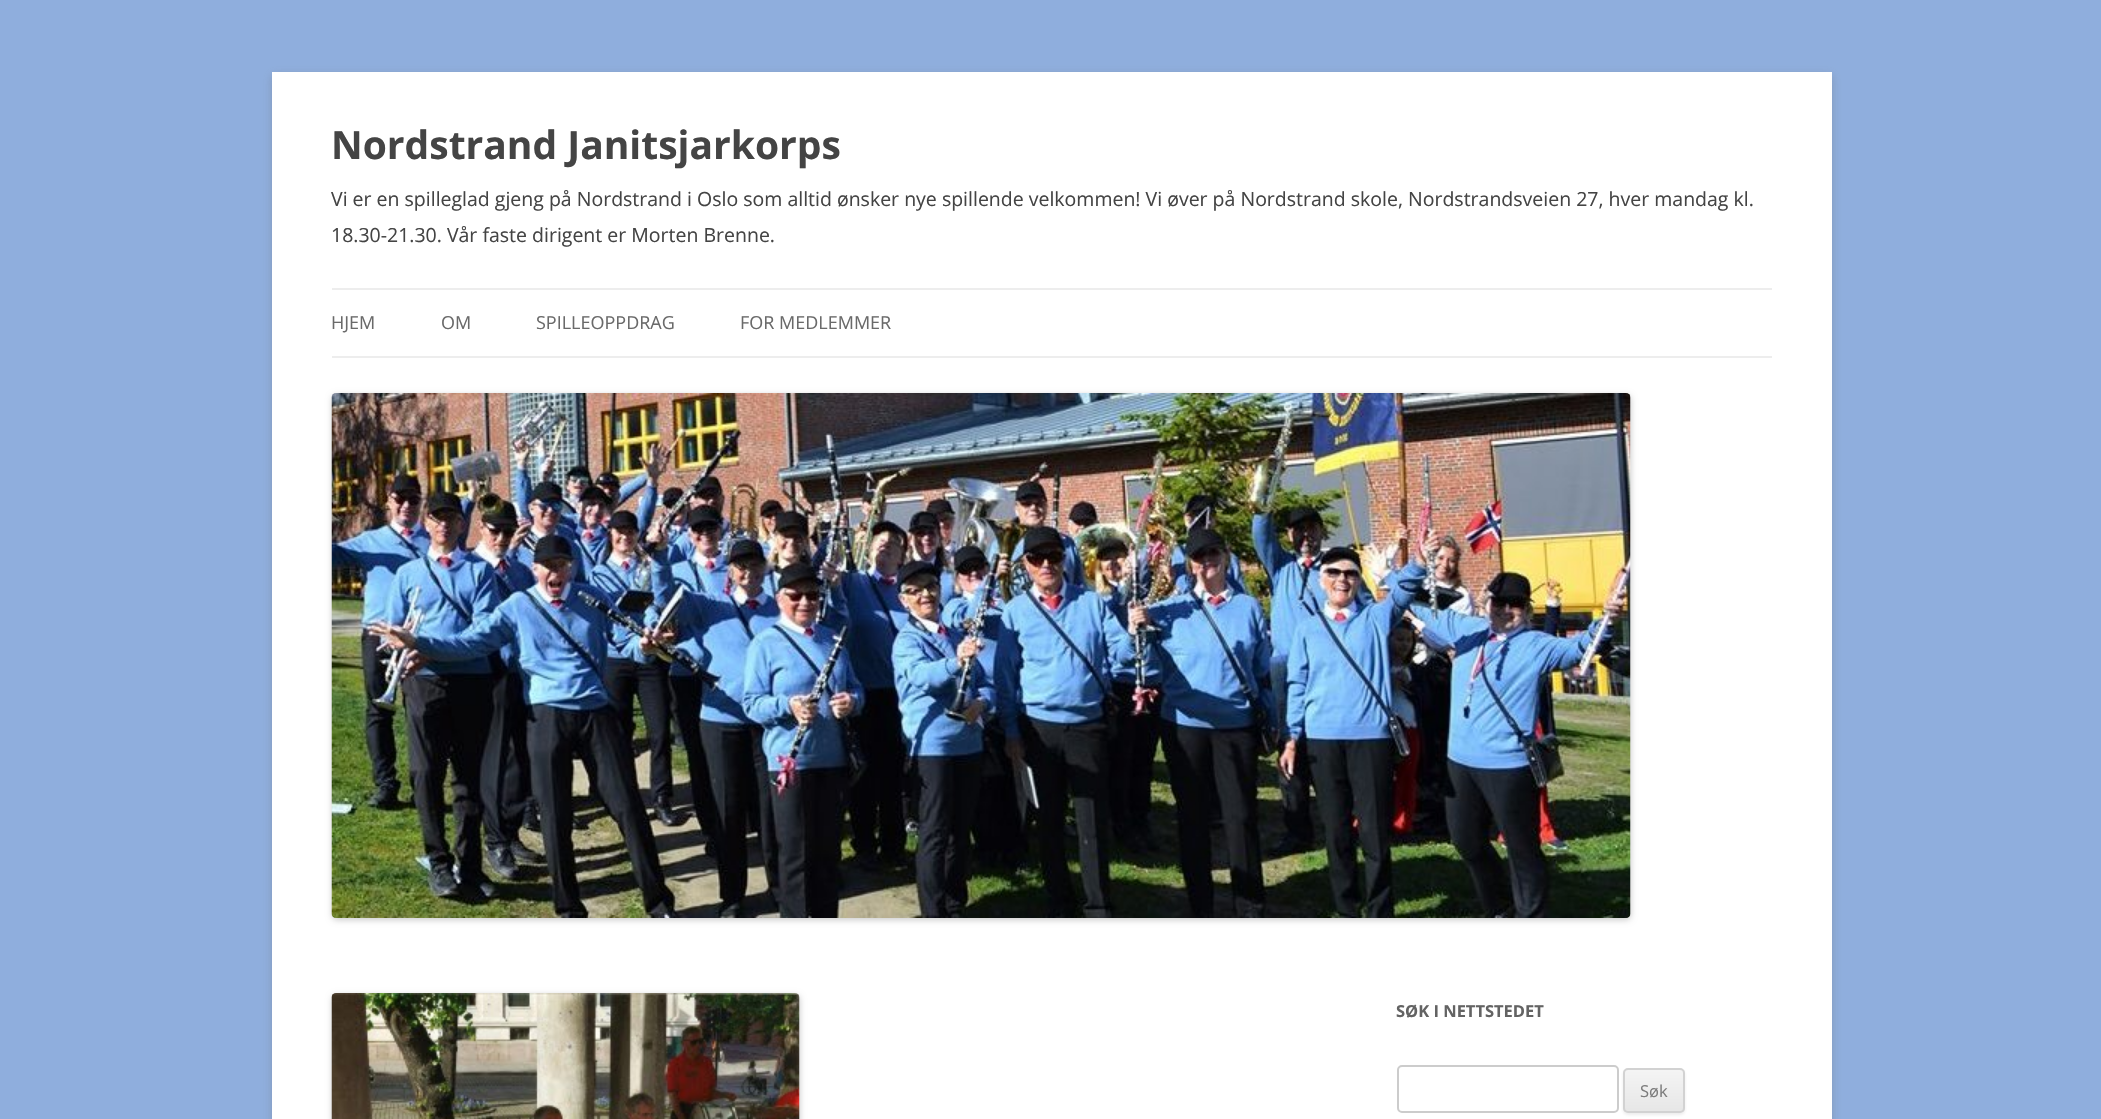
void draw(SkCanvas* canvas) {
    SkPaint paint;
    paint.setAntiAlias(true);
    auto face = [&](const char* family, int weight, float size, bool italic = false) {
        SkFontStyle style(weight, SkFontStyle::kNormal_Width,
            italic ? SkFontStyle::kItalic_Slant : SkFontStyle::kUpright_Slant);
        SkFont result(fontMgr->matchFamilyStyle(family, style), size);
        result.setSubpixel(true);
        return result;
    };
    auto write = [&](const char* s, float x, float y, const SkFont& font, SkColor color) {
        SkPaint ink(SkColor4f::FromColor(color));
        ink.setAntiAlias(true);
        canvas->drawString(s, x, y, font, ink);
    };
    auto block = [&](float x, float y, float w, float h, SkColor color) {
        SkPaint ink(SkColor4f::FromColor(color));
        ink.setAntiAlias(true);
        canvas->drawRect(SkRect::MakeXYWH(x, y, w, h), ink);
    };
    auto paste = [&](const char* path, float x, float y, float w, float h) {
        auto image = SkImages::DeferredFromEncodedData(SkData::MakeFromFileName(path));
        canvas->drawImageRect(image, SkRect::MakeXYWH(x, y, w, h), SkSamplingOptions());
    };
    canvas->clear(SkColorSetRGB(143, 174, 221));
    paint.setColor(SkColorSetARGB(77, 100, 100, 100));
    paint.setMaskFilter(SkMaskFilter::MakeBlur(kNormal_SkBlurStyle, 4.5f));
    canvas->drawRect(SkRect::MakeXYWH(272, 75, 1560, 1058), paint);
    paint.setMaskFilter(nullptr);
    block(272, 72, 1560, 1047, SK_ColorWHITE);
    auto kFont1 = face("Open Sans", 700, 39);
    write("Nordstrand Janitsjarkorps", 331, 159, kFont1, SkColorSetRGB(68, 68, 68));
    auto kFont2 = face("Open Sans", 400, 19.5f);
    write("Vi er en spilleglad gjeng på Nordstrand i Oslo som alltid ønsker nye spillende velkommen! Vi øver på Nordstrand skole, Nordstrandsveien 27, hver mandag kl.", 331, 206, kFont2, SkColorSetRGB(68, 68, 68));
    write("18.30-21.30. Vår faste dirigent er Morten Brenne.", 331, 242, kFont2, SkColorSetRGB(68, 68, 68));
    block(332, 288, 1440, 2, SkColorSetRGB(237, 237, 237));
    block(332, 356, 1440, 2, SkColorSetRGB(237, 237, 237));
    auto kFont3 = face("Open Sans", 400, 18);
    write("HJEM", 331, 329, kFont3, SkColorSetRGB(106, 106, 106));
    write("OM", 441, 329, kFont3, SkColorSetRGB(106, 106, 106));
    write("SPILLEOPPDRAG", 536, 329, kFont3, SkColorSetRGB(106, 106, 106));
    write("FOR MEDLEMMER", 740, 329, kFont3, SkColorSetRGB(106, 106, 106));
    paint.setColor(SkColorSetARGB(51, 0, 0, 0));
    paint.setMaskFilter(SkMaskFilter::MakeBlur(kNormal_SkBlurStyle, 3));
    canvas->drawRoundRect(SkRect::MakeXYWH(332, 395, 1299, 525), 5, 5, paint);
    paint.setMaskFilter(nullptr);
    paste("pic1.png", 331, 393, 1300, 525);
    paint.setMaskFilter(SkMaskFilter::MakeBlur(kNormal_SkBlurStyle, 3));
    canvas->drawRoundRect(SkRect::MakeXYWH(332, 995, 468, 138), 5, 5, paint);
    paint.setMaskFilter(nullptr);
    paste("pic2.png", 331, 993, 469, 126);
    auto kFont4 = face("Open Sans", 700, 16.5f);
    write("SØK I NETTSTEDET", 1396, 1017, kFont4, SkColorSetRGB(99, 99, 99));
    paint.setStyle(SkPaint::kStroke_Style);
    paint.setStrokeWidth(2);
    paint.setColor(SkColorSetRGB(204, 204, 204));
    canvas->drawRoundRect(SkRect::MakeXYWH(1398, 1066, 220, 46), 4, 4, paint);
    paint.setStyle(SkPaint::kFill_Style);
    paint.setColor(SkColorSetARGB(26, 64, 64, 64));
    paint.setMaskFilter(SkMaskFilter::MakeBlur(kNormal_SkBlurStyle, 1.5f));
    canvas->drawRoundRect(SkRect::MakeXYWH(1623, 1070, 62, 45), 5, 5, paint);
    paint.setMaskFilter(nullptr);
    canvas->save();
    canvas->clipPath(SkPathBuilder().moveTo(1628, 1068).lineTo(1680, 1068).cubicTo(1683, 1068, 1685, 1070, 1685, 1073).lineTo(1685, 1108).cubicTo(1685, 1111, 1683, 1113, 1680, 1113).lineTo(1628, 1113).cubicTo(1625, 1113, 1623, 1111, 1623, 1108).lineTo(1623, 1073).cubicTo(1623, 1070, 1625, 1068, 1628, 1068).close().detach(), true);
    {
        const SkColor colors[] = {SkColorSetRGB(244, 244, 244), SkColorSetRGB(230, 230, 230)};
        const float stops[] = {0, 1};
        const SkPoint ends[] = {{1654, 1070}, {1654, 1112}};
        paint.setShader(SkGradientShader::MakeLinear(ends, colors, stops, 2, SkTileMode::kClamp));
        paint.setAlpha(255);
    }
    canvas->drawRect(SkRect::MakeXYWH(1623, 1070, 62, 42), paint);
    canvas->restore();
    paint.setStyle(SkPaint::kStroke_Style);
    paint.setShader(nullptr);
    paint.setColor(SkColorSetRGB(210, 210, 210));
    canvas->drawRoundRect(SkRect::MakeXYWH(1624, 1069, 60, 43), 4, 4, paint);
    auto kFont5 = face("Open Sans", 400, 16.5f);
    write("Søk", 1640, 1097, kFont5, SkColorSetRGB(124, 124, 124));
}
